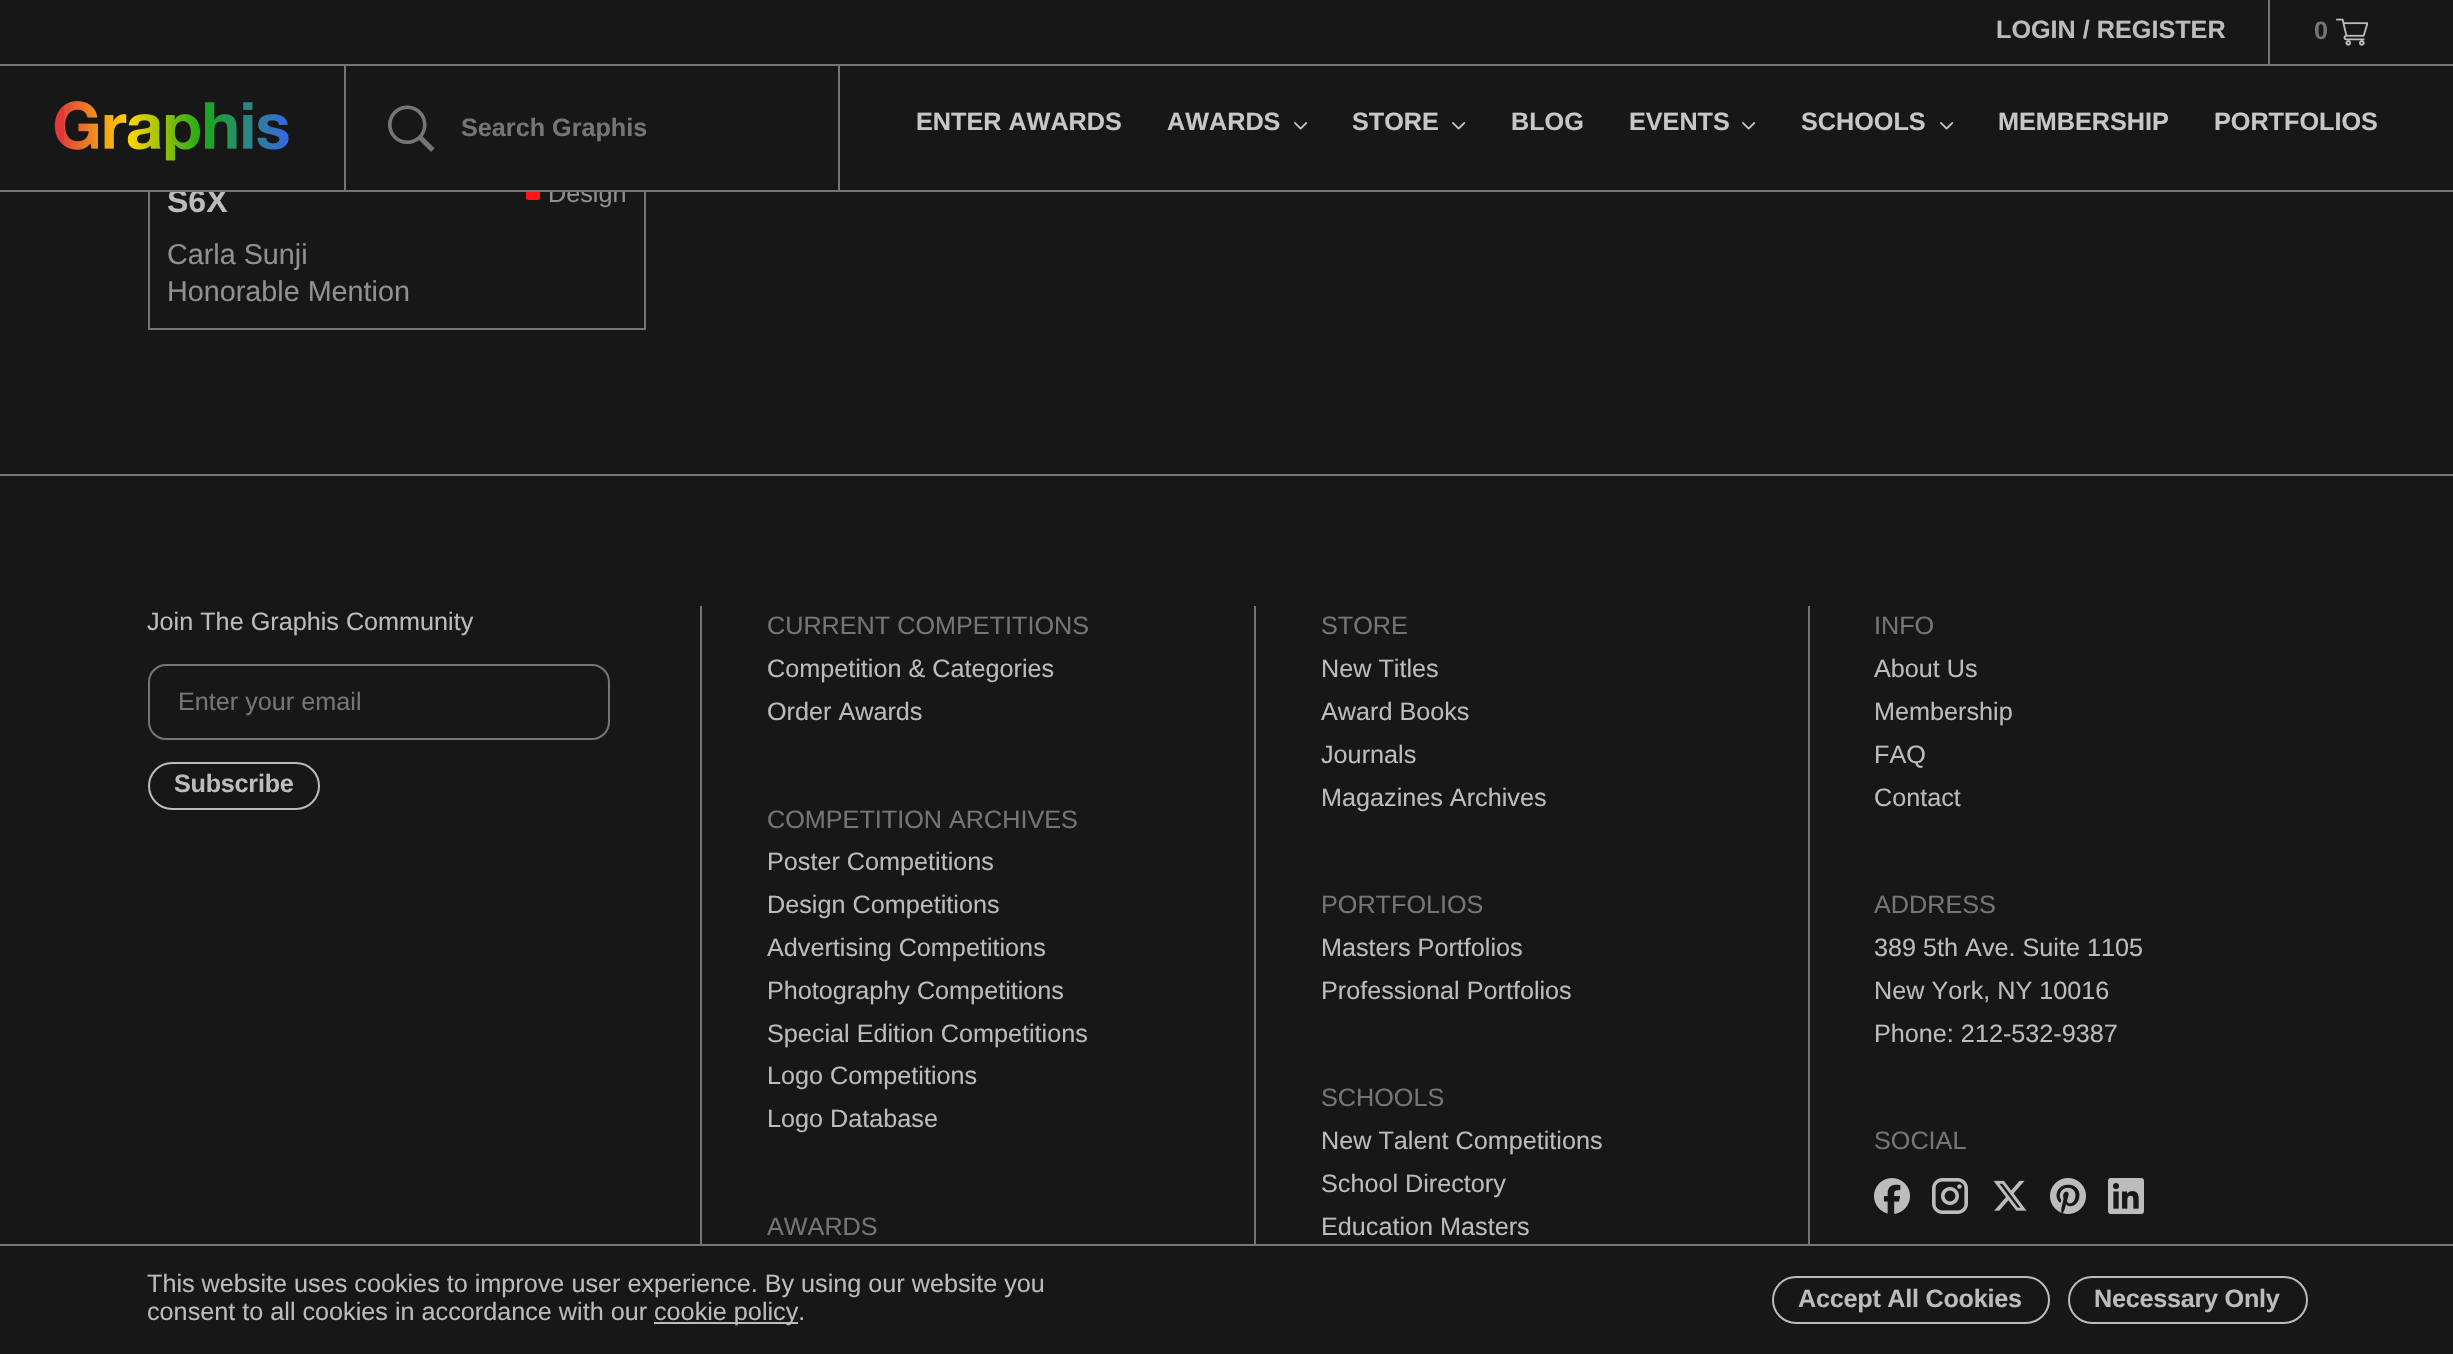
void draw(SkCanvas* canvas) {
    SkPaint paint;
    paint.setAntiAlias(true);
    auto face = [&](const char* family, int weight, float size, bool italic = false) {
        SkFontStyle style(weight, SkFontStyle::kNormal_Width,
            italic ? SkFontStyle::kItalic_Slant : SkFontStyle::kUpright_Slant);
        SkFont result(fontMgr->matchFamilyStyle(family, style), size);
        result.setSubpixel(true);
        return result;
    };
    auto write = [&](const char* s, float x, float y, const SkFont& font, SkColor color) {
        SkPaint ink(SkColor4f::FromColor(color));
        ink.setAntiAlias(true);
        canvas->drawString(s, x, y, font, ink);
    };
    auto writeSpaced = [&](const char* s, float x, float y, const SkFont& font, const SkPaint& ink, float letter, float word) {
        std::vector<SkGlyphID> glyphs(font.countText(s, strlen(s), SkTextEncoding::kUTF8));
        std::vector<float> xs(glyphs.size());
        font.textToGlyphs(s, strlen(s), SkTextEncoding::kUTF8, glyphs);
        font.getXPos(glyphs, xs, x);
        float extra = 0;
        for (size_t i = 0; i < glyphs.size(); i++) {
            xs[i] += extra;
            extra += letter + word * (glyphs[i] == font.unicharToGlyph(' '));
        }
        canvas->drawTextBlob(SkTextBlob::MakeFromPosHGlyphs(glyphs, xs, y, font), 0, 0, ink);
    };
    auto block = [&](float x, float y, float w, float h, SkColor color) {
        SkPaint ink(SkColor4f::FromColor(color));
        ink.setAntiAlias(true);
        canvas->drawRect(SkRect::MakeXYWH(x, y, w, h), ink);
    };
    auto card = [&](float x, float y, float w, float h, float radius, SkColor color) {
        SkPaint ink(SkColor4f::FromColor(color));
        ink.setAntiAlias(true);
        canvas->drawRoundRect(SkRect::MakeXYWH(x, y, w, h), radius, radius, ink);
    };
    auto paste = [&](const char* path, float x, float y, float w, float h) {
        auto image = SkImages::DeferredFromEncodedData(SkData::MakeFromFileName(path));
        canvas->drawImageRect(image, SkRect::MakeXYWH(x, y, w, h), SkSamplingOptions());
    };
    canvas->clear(SkColorSetRGB(23, 23, 23));
    paint.setStyle(SkPaint::kStroke_Style);
    paint.setStrokeWidth(2);
    paint.setColor(SkColorSetRGB(117, 117, 117));
    canvas->drawRect(SkRect::MakeXYWH(149, -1, 496, 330), paint);
    auto kFont1 = face("Liberation Sans", 700, 32);
    write("S6X", 167, 212, kFont1, SkColorSetRGB(188, 188, 188));
    card(526, 188, 14, 12, 2, SkColorSetRGB(255, 20, 20));
    auto kFont2 = face("Liberation Sans", 400, 25.2f);
    write("Design", 548, 202, kFont2, SkColorSetRGB(144, 144, 144));
    block(148, 0, 498, 190, SkColorSetRGB(23, 23, 23));
    auto kFont3 = face("Liberation Sans", 700, 25.2f);
    write("LOGIN / REGISTER", 1996, 38, kFont3, SkColorSetRGB(188, 188, 188));
    block(2268, 0, 2, 64, SkColorSetRGB(117, 117, 117));
    write("0", 2314, 39, kFont3, SkColorSetRGB(117, 117, 117));
    paste("pic1.png", 2336, 18, 32, 28);
    block(0, 64, 2453, 2, SkColorSetRGB(117, 117, 117));
    block(0, 190, 2453, 2, SkColorSetRGB(117, 117, 117));
    paste("pic2.png", 54, 101, 235, 60);
    block(344, 66, 2, 124, SkColorSetRGB(117, 117, 117));
    paste("pic3.png", 388, 105, 47, 47);
    write("Search Graphis", 461, 136, kFont3, SkColorSetRGB(117, 117, 117));
    block(838, 66, 2, 124, SkColorSetRGB(117, 117, 117));
    write("ENTER AWARDS", 916, 130, kFont3, SkColorSetRGB(199, 199, 199));
    write("AWARDS", 1167, 130, kFont3, SkColorSetRGB(199, 199, 199));
    paste("pic4.png", 1294, 122, 14, 8);
    write("STORE", 1352, 130, kFont3, SkColorSetRGB(199, 199, 199));
    paste("pic4.png", 1452, 122, 14, 8);
    write("BLOG", 1511, 130, kFont3, SkColorSetRGB(199, 199, 199));
    write("EVENTS", 1629, 130, kFont3, SkColorSetRGB(199, 199, 199));
    paste("pic4.png", 1742, 122, 14, 8);
    write("SCHOOLS", 1801, 130, kFont3, SkColorSetRGB(199, 199, 199));
    paste("pic4.png", 1940, 122, 14, 8);
    write("MEMBERSHIP", 1998, 130, kFont3, SkColorSetRGB(199, 199, 199));
    write("PORTFOLIOS", 2214, 130, kFont3, SkColorSetRGB(199, 199, 199));
    auto kFont4 = face("Liberation Sans", 400, 28.75f);
    write("Carla Sunji", 167, 264, kFont4, SkColorSetRGB(144, 144, 144));
    write("Honorable Mention", 167, 301, kFont4, SkColorSetRGB(144, 144, 144));
    block(0, 474, 2453, 2, SkColorSetRGB(117, 117, 117));
    write("Join The Graphis Community", 147, 630, kFont2, SkColorSetRGB(188, 188, 188));
    canvas->drawRoundRect(SkRect::MakeXYWH(149, 665, 460, 74), 17, 17, paint);
    write("Enter your email", 178, 710, kFont2, SkColorSetRGB(117, 117, 117));
    paint.setColor(SkColorSetRGB(188, 188, 188));
    canvas->drawRoundRect(SkRect::MakeXYWH(149, 763, 170, 46), 23, 23, paint);
    paint.setStyle(SkPaint::kFill_Style);
    writeSpaced("Subscribe", 174, 792, kFont3, paint, -0.25f, 0);
    block(700, 606, 2, 638, SkColorSetRGB(117, 117, 117));
    write("CURRENT COMPETITIONS", 767, 634, kFont2, SkColorSetRGB(117, 117, 117));
    write("Competition & Categories", 767, 677, kFont2, SkColorSetRGB(188, 188, 188));
    write("Order Awards", 767, 720, kFont2, SkColorSetRGB(188, 188, 188));
    write("COMPETITION ARCHIVES", 767, 828, kFont2, SkColorSetRGB(117, 117, 117));
    write("Poster Competitions", 767, 870, kFont2, SkColorSetRGB(188, 188, 188));
    write("Design Competitions", 767, 913, kFont2, SkColorSetRGB(188, 188, 188));
    write("Advertising Competitions", 767, 956, kFont2, SkColorSetRGB(188, 188, 188));
    write("Photography Competitions", 767, 999, kFont2, SkColorSetRGB(188, 188, 188));
    write("Special Edition Competitions", 767, 1042, kFont2, SkColorSetRGB(188, 188, 188));
    write("Logo Competitions", 767, 1084, kFont2, SkColorSetRGB(188, 188, 188));
    write("Logo Database", 767, 1127, kFont2, SkColorSetRGB(188, 188, 188));
    write("AWARDS", 767, 1235, kFont2, SkColorSetRGB(117, 117, 117));
    block(1254, 606, 2, 638, SkColorSetRGB(117, 117, 117));
    write("STORE", 1321, 634, kFont2, SkColorSetRGB(117, 117, 117));
    write("New Titles", 1321, 677, kFont2, SkColorSetRGB(188, 188, 188));
    write("Award Books", 1321, 720, kFont2, SkColorSetRGB(188, 188, 188));
    write("Journals", 1321, 763, kFont2, SkColorSetRGB(188, 188, 188));
    write("Magazines Archives", 1321, 806, kFont2, SkColorSetRGB(188, 188, 188));
    write("PORTFOLIOS", 1321, 913, kFont2, SkColorSetRGB(117, 117, 117));
    write("Masters Portfolios", 1321, 956, kFont2, SkColorSetRGB(188, 188, 188));
    write("Professional Portfolios", 1321, 999, kFont2, SkColorSetRGB(188, 188, 188));
    write("SCHOOLS", 1321, 1106, kFont2, SkColorSetRGB(117, 117, 117));
    write("New Talent Competitions", 1321, 1149, kFont2, SkColorSetRGB(188, 188, 188));
    write("School Directory", 1321, 1192, kFont2, SkColorSetRGB(188, 188, 188));
    write("Education Masters", 1321, 1235, kFont2, SkColorSetRGB(188, 188, 188));
    block(1808, 606, 2, 638, SkColorSetRGB(117, 117, 117));
    write("INFO", 1874, 634, kFont2, SkColorSetRGB(117, 117, 117));
    write("About Us", 1874, 677, kFont2, SkColorSetRGB(188, 188, 188));
    write("Membership", 1874, 720, kFont2, SkColorSetRGB(188, 188, 188));
    write("FAQ", 1874, 763, kFont2, SkColorSetRGB(188, 188, 188));
    write("Contact", 1874, 806, kFont2, SkColorSetRGB(188, 188, 188));
    write("ADDRESS", 1874, 913, kFont2, SkColorSetRGB(117, 117, 117));
    write("389 5th Ave. Suite 1105", 1874, 956, kFont2, SkColorSetRGB(188, 188, 188));
    write("New York, NY 10016", 1874, 999, kFont2, SkColorSetRGB(188, 188, 188));
    write("Phone: 212-532-9387", 1874, 1042, kFont2, SkColorSetRGB(188, 188, 188));
    write("SOCIAL", 1874, 1149, kFont2, SkColorSetRGB(117, 117, 117));
    paste("pic5.png", 1874, 1178, 36, 36);
    paste("pic6.png", 1932, 1178, 36, 36);
    paste("pic7.png", 1993, 1180, 34, 31);
    paste("pic8.png", 2050, 1178, 36, 36);
    paste("pic9.png", 2108, 1178, 36, 36);
    block(0, 1244, 2453, 2, SkColorSetRGB(117, 117, 117));
    write("This website uses cookies to improve user experience. By using our website you", 147, 1292, kFont2, SkColorSetRGB(188, 188, 188));
    write("consent to all cookies in accordance with our", 147, 1320, kFont2, SkColorSetRGB(188, 188, 188));
    block(654, 1322, 144, 2, SkColorSetRGB(188, 188, 188));
    write("cookie policy.", 654, 1320, kFont2, SkColorSetRGB(188, 188, 188));
    paint.setStyle(SkPaint::kStroke_Style);
    canvas->drawRoundRect(SkRect::MakeXYWH(1773, 1277, 276, 46), 23, 23, paint);
    paint.setStyle(SkPaint::kFill_Style);
    writeSpaced("Accept All Cookies", 1798, 1307, kFont3, paint, -0.25f, 0);
    paint.setStyle(SkPaint::kStroke_Style);
    canvas->drawRoundRect(SkRect::MakeXYWH(2069, 1277, 238, 46), 23, 23, paint);
    paint.setStyle(SkPaint::kFill_Style);
    writeSpaced("Necessary Only", 2094, 1307, kFont3, paint, -0.25f, 0);
}
